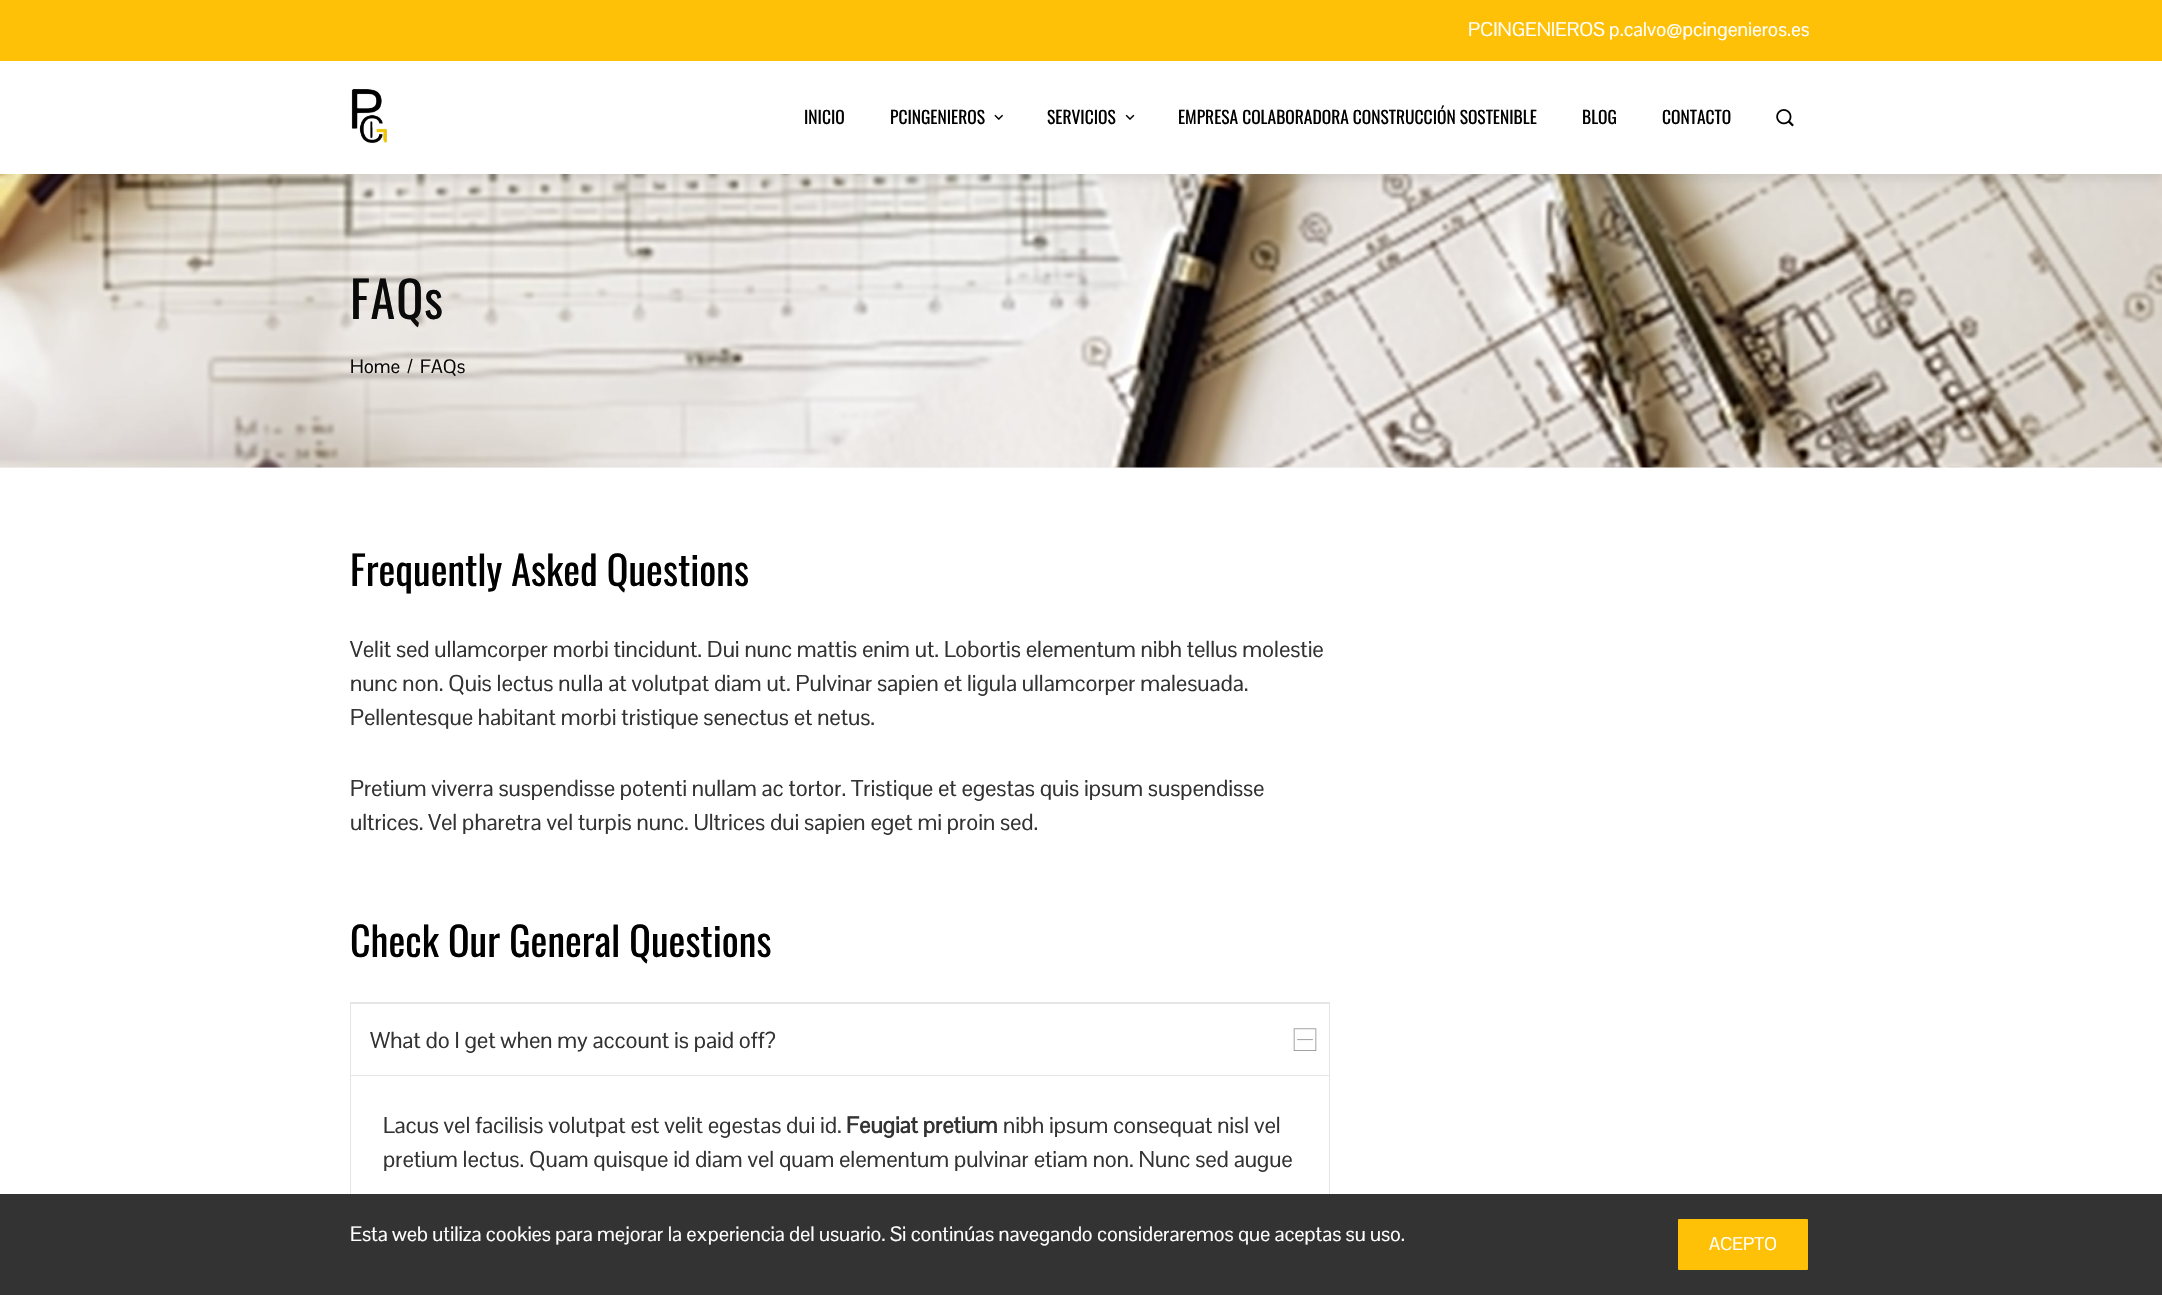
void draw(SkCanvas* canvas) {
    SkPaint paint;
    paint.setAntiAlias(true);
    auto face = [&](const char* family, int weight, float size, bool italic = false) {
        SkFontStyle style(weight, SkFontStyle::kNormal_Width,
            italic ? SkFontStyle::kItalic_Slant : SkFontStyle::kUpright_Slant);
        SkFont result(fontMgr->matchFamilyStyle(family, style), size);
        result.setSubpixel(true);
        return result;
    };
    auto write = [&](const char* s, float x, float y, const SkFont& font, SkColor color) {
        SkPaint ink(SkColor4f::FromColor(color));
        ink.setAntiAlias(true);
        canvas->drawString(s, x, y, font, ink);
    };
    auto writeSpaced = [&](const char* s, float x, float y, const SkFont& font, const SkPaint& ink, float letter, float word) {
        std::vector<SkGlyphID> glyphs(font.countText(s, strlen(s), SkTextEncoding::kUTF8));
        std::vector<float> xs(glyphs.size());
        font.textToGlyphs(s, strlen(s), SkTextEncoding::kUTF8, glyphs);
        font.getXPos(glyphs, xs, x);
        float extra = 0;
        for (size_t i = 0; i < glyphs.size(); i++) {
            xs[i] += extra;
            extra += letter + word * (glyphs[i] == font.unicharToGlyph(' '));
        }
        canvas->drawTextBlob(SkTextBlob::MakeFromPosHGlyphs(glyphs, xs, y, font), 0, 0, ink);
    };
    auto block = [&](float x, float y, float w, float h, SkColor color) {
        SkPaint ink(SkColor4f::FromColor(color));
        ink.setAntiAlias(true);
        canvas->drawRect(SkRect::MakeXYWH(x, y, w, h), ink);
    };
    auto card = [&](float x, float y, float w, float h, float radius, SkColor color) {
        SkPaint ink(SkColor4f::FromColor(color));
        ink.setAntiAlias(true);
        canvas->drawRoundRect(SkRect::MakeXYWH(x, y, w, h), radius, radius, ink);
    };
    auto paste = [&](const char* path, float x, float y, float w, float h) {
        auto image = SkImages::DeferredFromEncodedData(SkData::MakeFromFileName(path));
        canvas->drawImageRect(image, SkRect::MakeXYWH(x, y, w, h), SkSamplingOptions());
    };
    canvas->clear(SK_ColorWHITE);
    block(0, 467, 2162, 1, SkColorSetRGB(247, 249, 253));
    paste("pic5.png", 0, 174, 2162, 294);
    paint.setColor(SkColorSetARGB(26, 0, 0, 0));
    paint.setMaskFilter(SkMaskFilter::MakeBlur(kNormal_SkBlurStyle, 6));
    canvas->drawRect(SkRect::MakeXYWH(0, 65, 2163, 113), paint);
    paint.setMaskFilter(nullptr);
    block(0, 0, 2162, 61, SkColorSetRGB(255, 193, 7));
    auto kFont1 = face("Pontano Sans", 400, 19.4f);
    write("PCINGENIEROS p.calvo@pcingenieros.es", 1468, 36, kFont1, SK_ColorWHITE);
    block(0, 61, 2162, 113, SK_ColorWHITE);
    paste("pic1.png", 351, 89, 36, 54);
    auto kFont2 = face("Oswald", 400, 17.5f);
    write("INICIO", 804, 124, kFont2, SK_ColorBLACK);
    write("PCINGENIEROS", 890, 124, kFont2, SK_ColorBLACK);
    paste("pic2.png", 994, 114, 9, 6);
    write("SERVICIOS", 1047, 124, kFont2, SK_ColorBLACK);
    paste("pic3.png", 1125, 114, 10, 6);
    write("EMPRESA COLABORADORA CONSTRUCCIÓN SOSTENIBLE", 1178, 124, kFont2, SK_ColorBLACK);
    write("BLOG", 1582, 124, kFont2, SK_ColorBLACK);
    write("CONTACTO", 1662, 124, kFont2, SK_ColorBLACK);
    paste("pic4.png", 1776, 109, 18, 18);
    auto kFont3 = face("Oswald", 400, 50);
    paint.setColor(SkColorSetRGB(10, 10, 10));
    writeSpaced("FAQs", 350, 319, kFont3, paint, 1, 0);
    auto kFont4 = face("Pontano Sans", 400, 19);
    write("Home", 350, 373, kFont4, SkColorSetRGB(10, 10, 10));
    write("/", 407, 373, kFont4, SkColorSetRGB(10, 10, 10));
    write("FAQs", 420, 373, kFont4, SkColorSetRGB(10, 10, 10));
    auto kFont5 = face("Oswald", 400, 40);
    write("Frequently Asked Questions", 350, 586, kFont5, SK_ColorBLACK);
    auto kFont6 = face("Pontano Sans", 400, 22.5f);
    write("Velit sed ullamcorper morbi tincidunt. Dui nunc mattis enim ut. Lobortis elementum nibh tellus molestie", 350, 657, kFont6, SkColorSetRGB(51, 51, 51));
    write("nunc non. Quis lectus nulla at volutpat diam ut. Pulvinar sapien et ligula ullamcorper malesuada.", 350, 691, kFont6, SkColorSetRGB(51, 51, 51));
    write("Pellentesque habitant morbi tristique senectus et netus.", 350, 725, kFont6, SkColorSetRGB(51, 51, 51));
    write("Pretium viverra suspendisse potenti nullam ac tortor. Tristique et egestas quis ipsum suspendisse", 350, 796, kFont6, SkColorSetRGB(51, 51, 51));
    write("ultrices. Vel pharetra vel turpis nunc. Ultrices dui sapien eget mi proin sed.", 350, 830, kFont6, SkColorSetRGB(51, 51, 51));
    write("Check Our General Questions", 350, 957, kFont5, SK_ColorBLACK);
    paint.setColor(SkColorSetRGB(230, 230, 230));
    canvas->drawPath(SkPathBuilder().moveTo(350, 1002).lineTo(1330, 1002).lineTo(1329, 1004).lineTo(351, 1004).close().detach(), paint);
    paint.setColor(SkColorSetARGB(26, 0, 0, 0));
    canvas->drawPath(SkPathBuilder().moveTo(1330, 1002).lineTo(1330, 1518).lineTo(1329, 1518).lineTo(1329, 1004).close().detach(), paint);
    canvas->drawPath(SkPathBuilder().moveTo(350, 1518).lineTo(350, 1002).lineTo(351, 1004).lineTo(351, 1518).close().detach(), paint);
    write("What do I get when my account is paid off?", 370, 1048, kFont6, SkColorSetRGB(51, 51, 51));
    paste("pic6.png", 1293, 1028, 24, 23);
    block(351, 1075, 978, 1, SkColorSetRGB(230, 230, 230));
    write("Lacus vel facilisis volutpat est velit egestas dui id.", 383, 1133, kFont6, SkColorSetRGB(51, 51, 51));
    auto kFont7 = face("Pontano Sans", 700, 22.5f);
    write("Feugiat pretium", 846, 1133, kFont7, SkColorSetRGB(51, 51, 51));
    write("nibh ipsum consequat nisl vel", 1003, 1133, kFont6, SkColorSetRGB(51, 51, 51));
    write("pretium lectus. Quam quisque id diam vel quam elementum pulvinar etiam non. Nunc sed augue", 383, 1167, kFont6, SkColorSetRGB(51, 51, 51));
    block(0, 1194, 2162, 101, SkColorSetRGB(51, 51, 51));
    auto kFont8 = face("Pontano Sans", 400, 20.25f);
    write("Esta web utiliza cookies para mejorar la experiencia del usuario. Si continúas navegando consideraremos que aceptas su uso.", 350, 1241, kFont8, SK_ColorWHITE);
    card(1678, 1219, 130, 51, 1, SkColorSetRGB(255, 193, 7));
    auto kFont9 = face("Pontano Sans", 400, 18);
    write("ACEPTO", 1709, 1250, kFont9, SK_ColorWHITE);
}
